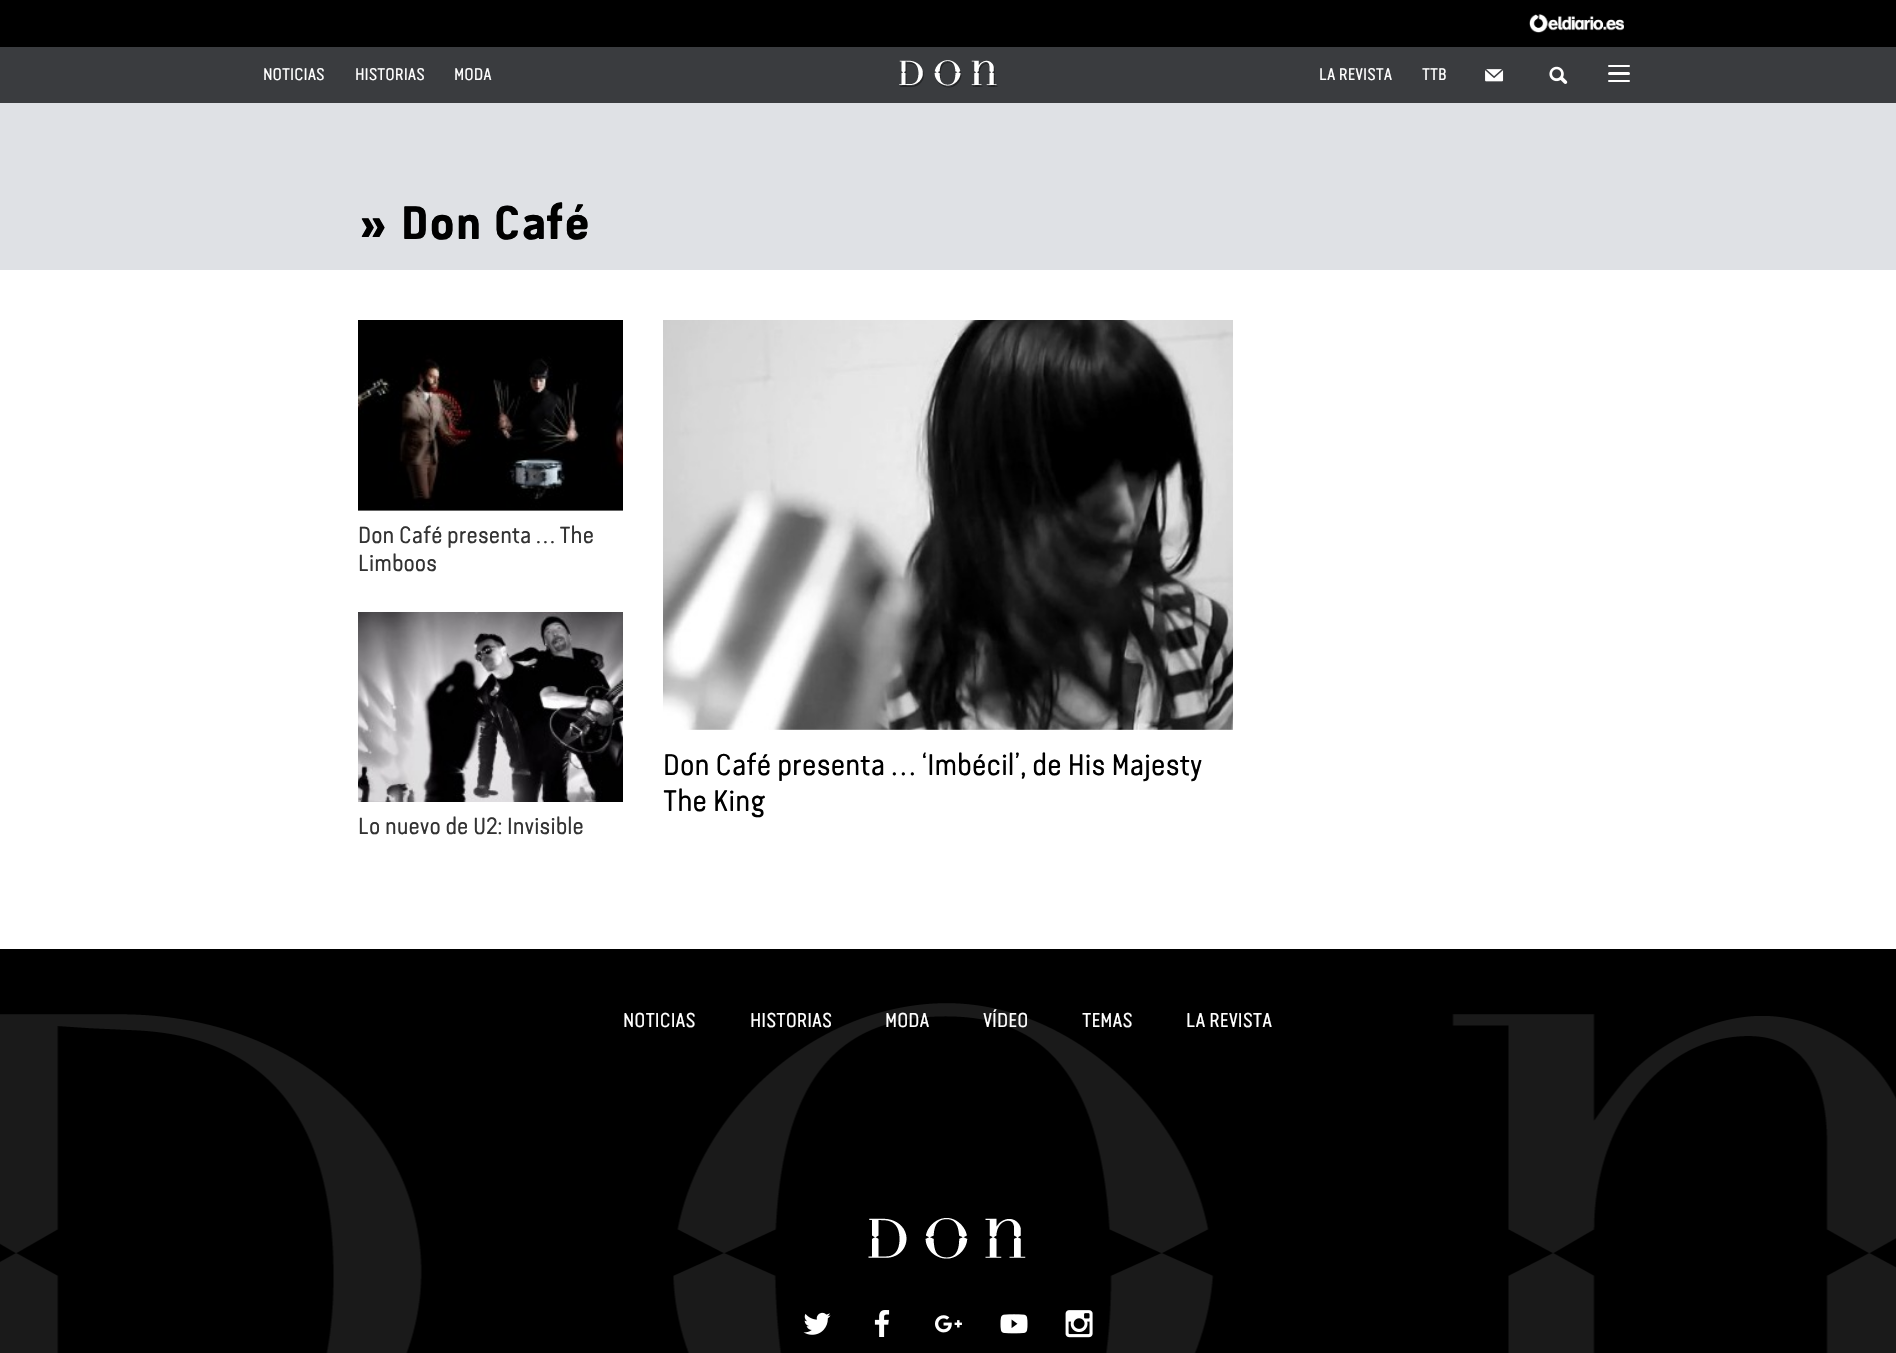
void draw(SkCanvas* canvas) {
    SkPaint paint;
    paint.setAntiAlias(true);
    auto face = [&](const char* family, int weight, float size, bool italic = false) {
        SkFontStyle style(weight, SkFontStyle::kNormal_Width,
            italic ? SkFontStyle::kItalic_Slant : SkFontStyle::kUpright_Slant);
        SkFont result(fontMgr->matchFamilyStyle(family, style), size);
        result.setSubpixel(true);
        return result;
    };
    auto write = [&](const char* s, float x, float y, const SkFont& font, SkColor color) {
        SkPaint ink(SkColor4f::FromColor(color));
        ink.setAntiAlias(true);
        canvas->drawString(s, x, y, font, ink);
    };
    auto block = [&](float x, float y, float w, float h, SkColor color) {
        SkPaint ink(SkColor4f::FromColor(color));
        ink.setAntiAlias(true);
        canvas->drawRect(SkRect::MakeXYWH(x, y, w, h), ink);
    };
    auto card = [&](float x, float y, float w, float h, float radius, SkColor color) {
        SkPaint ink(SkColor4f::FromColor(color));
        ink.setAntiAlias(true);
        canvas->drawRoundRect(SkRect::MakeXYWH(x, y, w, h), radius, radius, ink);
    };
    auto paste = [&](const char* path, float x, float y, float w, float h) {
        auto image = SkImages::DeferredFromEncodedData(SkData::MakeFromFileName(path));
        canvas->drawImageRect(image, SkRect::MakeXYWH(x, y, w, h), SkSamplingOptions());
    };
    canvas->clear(SK_ColorWHITE);
    block(0, 0, 1896, 47, SK_ColorBLACK);
    paste("pic1.png", 1529, 14, 95, 19);
    block(0, 47, 1896, 56, SkColorSetRGB(58, 60, 63));
    auto kFont1 = face("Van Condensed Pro", 400, 17);
    write("NOTICIAS", 263, 80, kFont1, SK_ColorWHITE);
    write("HISTORIAS", 355, 80, kFont1, SK_ColorWHITE);
    write("MODA", 454, 80, kFont1, SK_ColorWHITE);
    paste("pic2.png", 899, 60, 99, 28);
    write("LA REVISTA", 1319, 80, kFont1, SK_ColorWHITE);
    write("TTB", 1422, 80, kFont1, SK_ColorWHITE);
    paste("pic3.png", 1485, 69, 19, 13);
    paste("pic4.png", 1549, 66, 19, 18);
    card(1608, 65, 22, 2, 1, SK_ColorWHITE);
    card(1608, 72, 22, 3, 1.5f, SK_ColorWHITE);
    card(1608, 80, 22, 2, 1, SK_ColorWHITE);
    block(0, 103, 1896, 167, SkColorSetRGB(223, 225, 229));
    auto kFont2 = face("Van Condensed Pro", 700, 47);
    write("» Don Café", 358, 239, kFont2, SK_ColorBLACK);
    paste("pic5.png", 358, 320, 265, 191);
    auto kFont3 = face("Van Condensed Pro", 400, 23.4f);
    write("Don Café presenta … The", 358, 543, kFont3, SkColorSetRGB(51, 51, 51));
    write("Limboos", 358, 571, kFont3, SkColorSetRGB(51, 51, 51));
    paste("pic6.png", 358, 612, 265, 190);
    write("Lo nuevo de U2: Invisible", 358, 834, kFont3, SkColorSetRGB(51, 51, 51));
    paste("pic7.png", 663, 320, 570, 410);
    auto kFont4 = face("Van Condensed Pro", 400, 30);
    write("Don Café presenta … ‘Imbécil’, de His Majesty", 663, 775, kFont4, SK_ColorBLACK);
    write("The King", 663, 811, kFont4, SK_ColorBLACK);
    block(0, 949, 1896, 404, SK_ColorBLACK);
    paste("pic8.png", 0, 1003, 1896, 350);
    auto kFont5 = face("Van Condensed Pro", 400, 20);
    write("NOTICIAS", 623, 1027, kFont5, SK_ColorWHITE);
    write("HISTORIAS", 750, 1027, kFont5, SK_ColorWHITE);
    write("MODA", 885, 1027, kFont5, SK_ColorWHITE);
    write("VÍDEO", 983, 1027, kFont5, SK_ColorWHITE);
    write("TEMAS", 1082, 1027, kFont5, SK_ColorWHITE);
    write("LA REVISTA", 1186, 1027, kFont5, SK_ColorWHITE);
    paste("pic9.png", 868, 1218, 158, 41);
    paste("pic10.png", 803, 1312, 28, 23);
    paste("pic11.png", 874, 1310, 16, 27);
    paste("pic12.png", 935, 1315, 27, 18);
    paste("pic13.png", 1000, 1314, 28, 20);
    paste("pic14.png", 1065, 1310, 28, 28);
}
